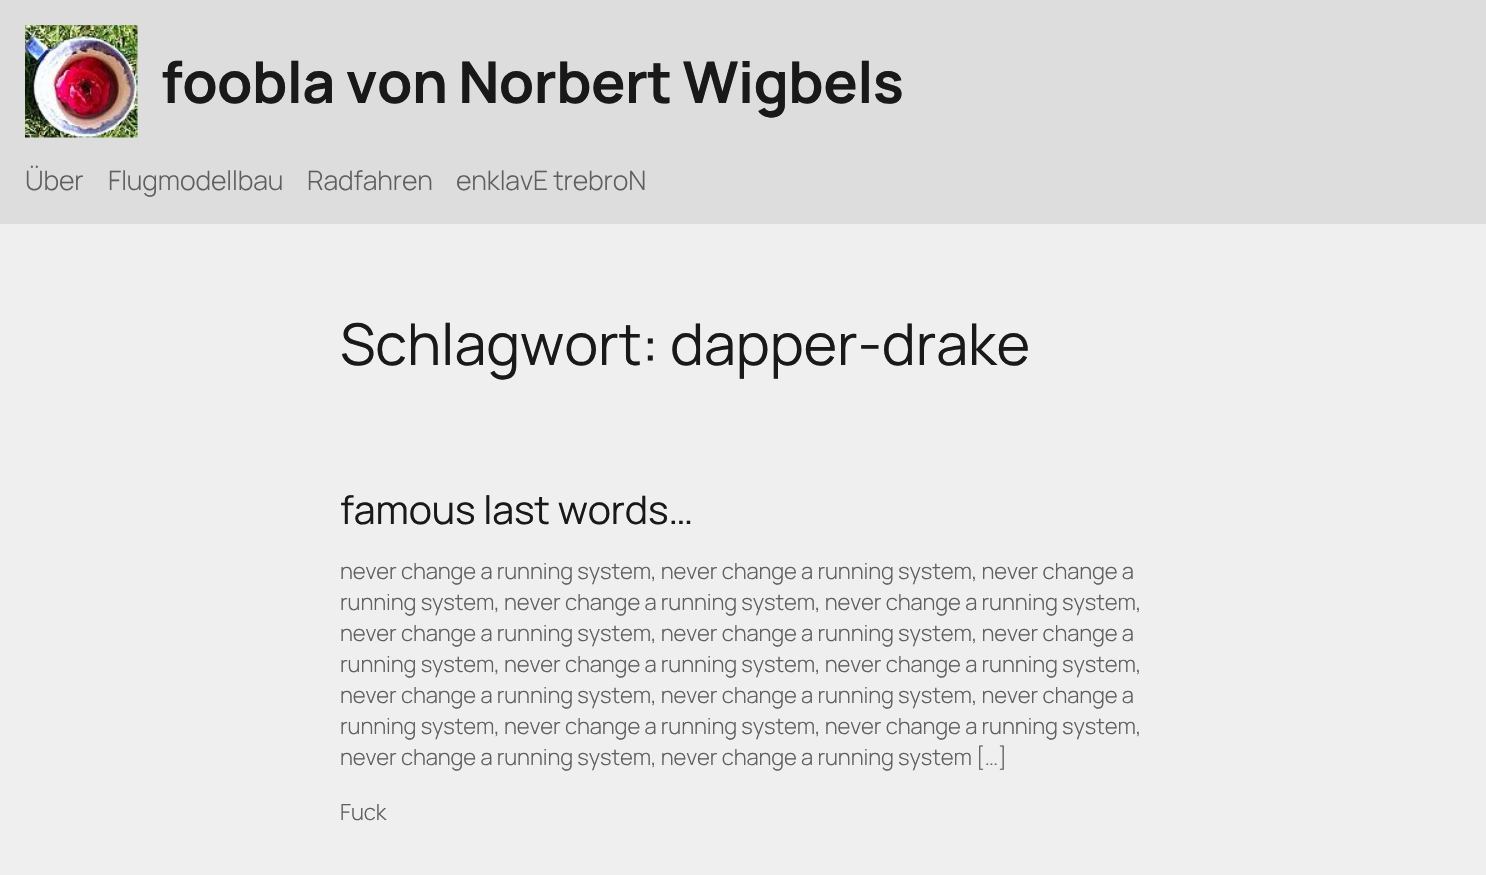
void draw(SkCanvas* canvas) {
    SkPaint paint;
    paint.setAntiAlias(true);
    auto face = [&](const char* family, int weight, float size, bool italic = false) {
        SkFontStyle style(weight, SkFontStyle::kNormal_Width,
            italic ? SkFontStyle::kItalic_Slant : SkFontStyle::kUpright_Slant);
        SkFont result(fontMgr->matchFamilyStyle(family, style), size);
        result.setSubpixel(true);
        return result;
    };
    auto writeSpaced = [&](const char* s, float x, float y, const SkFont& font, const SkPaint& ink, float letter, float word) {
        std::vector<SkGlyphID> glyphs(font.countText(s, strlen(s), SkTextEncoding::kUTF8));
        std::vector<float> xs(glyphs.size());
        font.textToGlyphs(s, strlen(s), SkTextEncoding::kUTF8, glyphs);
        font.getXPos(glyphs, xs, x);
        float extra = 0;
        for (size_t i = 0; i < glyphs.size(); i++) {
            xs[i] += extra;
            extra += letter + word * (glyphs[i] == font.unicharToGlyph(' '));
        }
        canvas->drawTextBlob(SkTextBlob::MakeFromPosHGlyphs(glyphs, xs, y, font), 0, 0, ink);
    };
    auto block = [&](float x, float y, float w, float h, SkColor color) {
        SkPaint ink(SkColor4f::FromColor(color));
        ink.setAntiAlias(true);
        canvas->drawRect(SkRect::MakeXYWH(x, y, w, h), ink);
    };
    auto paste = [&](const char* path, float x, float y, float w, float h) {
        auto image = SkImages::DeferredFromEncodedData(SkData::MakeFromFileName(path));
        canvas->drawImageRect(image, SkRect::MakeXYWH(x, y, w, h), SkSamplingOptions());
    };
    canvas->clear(SkColorSetRGB(239, 239, 239));
    block(0, 0, 1486, 224, SkColorSetRGB(221, 221, 221));
    paste("pic1.png", 25, 25, 113, 113);
    auto kFont1 = face("Manrope", 700, 57.5f);
    paint.setColor(SkColorSetRGB(25, 25, 25));
    writeSpaced("foobla von Norbert Wigbels", 161, 103, kFont1, paint, -0.6f, 0);
    auto kFont2 = face("Manrope", 300, 26.75f);
    paint.setColor(SkColorSetRGB(95, 95, 95));
    writeSpaced("Über", 25, 190, kFont2, paint, -0.12f, 0);
    writeSpaced("Flugmodellbau", 108, 190, kFont2, paint, -0.12f, 0);
    writeSpaced("Radfahren", 307, 190, kFont2, paint, -0.12f, 0);
    writeSpaced("enklavE trebroN", 456, 190, kFont2, paint, -0.12f, 0);
    auto kFont3 = face("Manrope", 400, 57.5f);
    paint.setColor(SkColorSetRGB(25, 25, 25));
    writeSpaced("Schlagwort: dapper-drake", 340, 365, kFont3, paint, -0.12f, 0);
    auto kFont4 = face("Manrope", 400, 39.25f);
    writeSpaced("famous last words…", 340, 524, kFont4, paint, -0.12f, 0);
    auto kFont5 = face("Manrope", 300, 22.15f);
    paint.setColor(SkColorSetRGB(95, 95, 95));
    writeSpaced("never change a running system, never change a running system, never change a", 340, 579, kFont5, paint, -0.12f, 0);
    writeSpaced("running system, never change a running system, never change a running system,", 340, 610, kFont5, paint, -0.12f, 0);
    writeSpaced("never change a running system, never change a running system, never change a", 340, 641, kFont5, paint, -0.12f, 0);
    writeSpaced("running system, never change a running system, never change a running system,", 340, 672, kFont5, paint, -0.12f, 0);
    writeSpaced("never change a running system, never change a running system, never change a", 340, 703, kFont5, paint, -0.12f, 0);
    writeSpaced("running system, never change a running system, never change a running system,", 340, 734, kFont5, paint, -0.12f, 0);
    writeSpaced("never change a running system, never change a running system […]", 340, 765, kFont5, paint, -0.12f, 0);
    writeSpaced("Fuck", 340, 820, kFont5, paint, -0.12f, 0);
}
